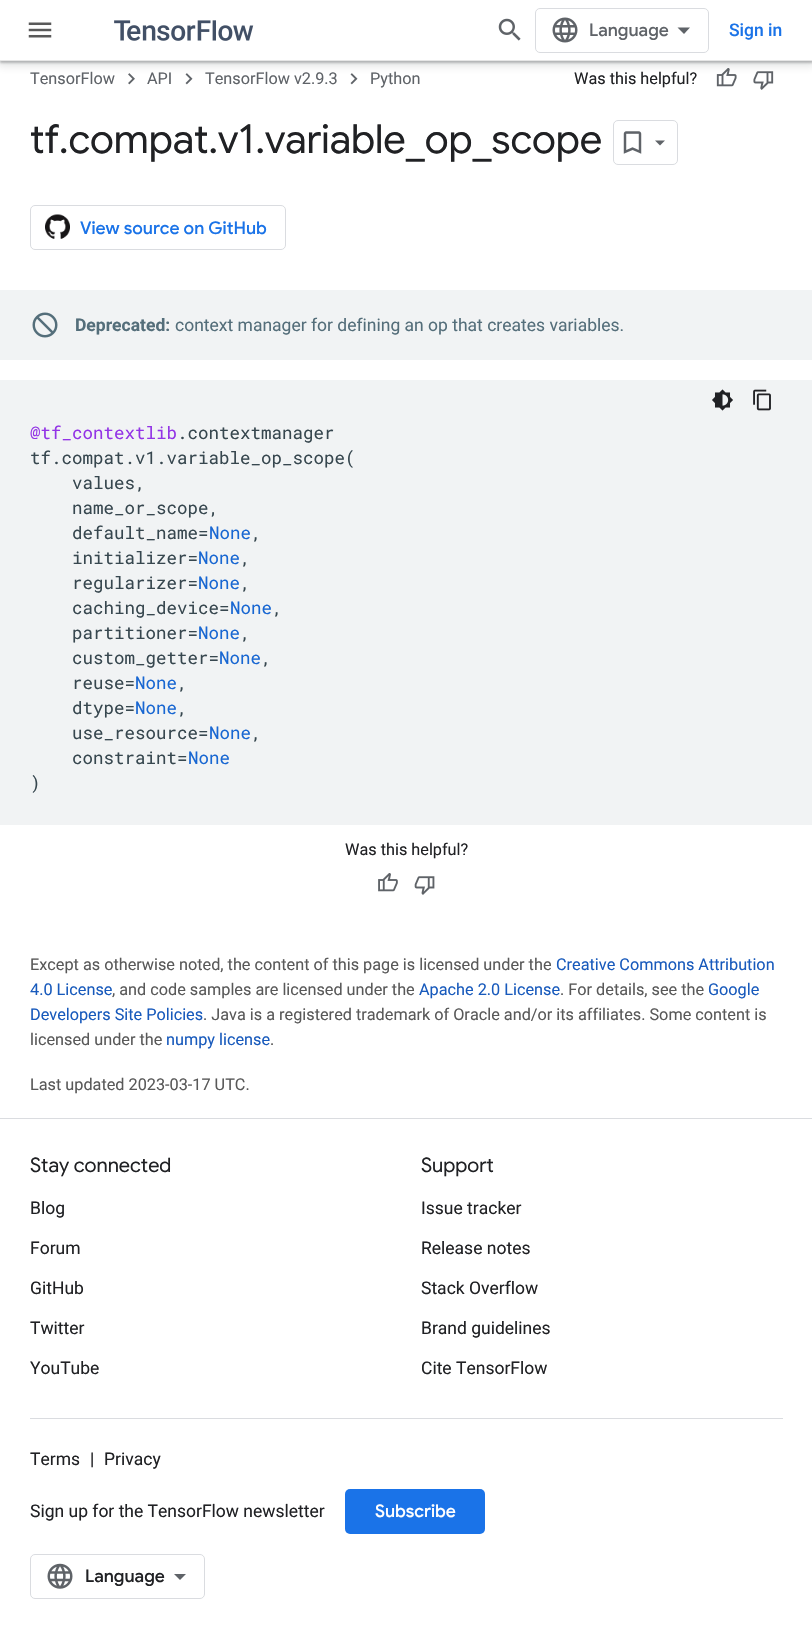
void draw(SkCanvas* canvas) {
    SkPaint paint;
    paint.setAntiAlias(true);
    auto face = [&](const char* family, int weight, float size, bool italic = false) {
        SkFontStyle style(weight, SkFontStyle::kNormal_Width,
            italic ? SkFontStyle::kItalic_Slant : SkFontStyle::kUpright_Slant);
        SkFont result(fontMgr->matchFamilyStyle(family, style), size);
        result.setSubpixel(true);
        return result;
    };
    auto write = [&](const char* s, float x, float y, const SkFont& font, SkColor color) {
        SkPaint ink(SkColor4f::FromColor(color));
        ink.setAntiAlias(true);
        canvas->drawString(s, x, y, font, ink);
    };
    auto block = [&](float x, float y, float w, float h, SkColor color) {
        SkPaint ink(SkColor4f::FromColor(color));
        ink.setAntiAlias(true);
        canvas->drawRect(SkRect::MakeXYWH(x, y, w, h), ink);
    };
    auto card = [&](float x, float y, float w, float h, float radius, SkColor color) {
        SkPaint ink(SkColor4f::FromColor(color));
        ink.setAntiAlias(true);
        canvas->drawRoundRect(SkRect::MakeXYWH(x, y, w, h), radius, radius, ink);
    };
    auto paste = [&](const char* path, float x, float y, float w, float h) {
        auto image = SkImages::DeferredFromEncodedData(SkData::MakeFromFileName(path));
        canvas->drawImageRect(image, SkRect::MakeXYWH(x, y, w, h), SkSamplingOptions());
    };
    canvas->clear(SK_ColorWHITE);
    paste("pic5.png", 128, 73, 7, 12);
    paste("pic6.png", 185, 73, 8, 12);
    paste("pic6.png", 350, 73, 8, 12);
    paste("pic7.png", 716, 68, 21, 19);
    paste("pic8.png", 753, 71, 21, 19);
    paint.setColor(SkColorSetARGB(38, 60, 64, 67));
    paint.setMaskFilter(SkMaskFilter::MakeBlur(kNormal_SkBlurStyle, 4));
    canvas->drawRect(SkRect::MakeXYWH(-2, -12, 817, 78), paint);
    paint.setMaskFilter(nullptr);
    paint.setColor(SkColorSetARGB(77, 60, 64, 67));
    paint.setMaskFilter(SkMaskFilter::MakeBlur(kNormal_SkBlurStyle, 1));
    canvas->drawRect(SkRect::MakeXYWH(0, -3, 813, 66), paint);
    paint.setMaskFilter(nullptr);
    block(0, 0, 812, 60, SK_ColorWHITE);
    block(0, 60, 812, 1, SkColorSetRGB(230, 230, 230));
    paste("pic1.png", 28, 22, 24, 16);
    paste("pic2.png", 114, 20, 140, 21);
    paste("pic3.png", 498, 18, 23, 23);
    paint.setStyle(SkPaint::kStroke_Style);
    paint.setStrokeWidth(1);
    paint.setColor(SkColorSetRGB(218, 220, 224));
    canvas->drawRoundRect(SkRect::MakeXYWH(535.5f, 8.5f, 173, 44), 4.5f, 4.5f, paint);
    paste("pic4.png", 552, 17, 26, 26);
    auto kFont1 = face("Google Sans", 500, 17.5f);
    write("Language", 589, 36, kFont1, SkColorSetRGB(95, 99, 104));
    paint.setStyle(SkPaint::kFill_Style);
    paint.setColor(SkColorSetRGB(95, 99, 104));
    canvas->drawPath(SkPathBuilder().moveTo(684, 34).lineTo(677.5f, 27.5f).lineTo(690, 27.5f).close().detach(), paint);
    auto kFont2 = face("Roboto", 500, 17.5f);
    write("Sign in", 729, 36, kFont2, SkColorSetRGB(26, 115, 232));
    auto kFont3 = face("Roboto", 400, 16.25f);
    write("TensorFlow", 30, 84, kFont3, SkColorSetRGB(95, 99, 104));
    write("API", 147, 84, kFont3, SkColorSetRGB(95, 99, 104));
    write("TensorFlow v2.9.3", 205, 84, kFont3, SkColorSetRGB(95, 99, 104));
    write("Python", 370, 84, kFont3, SkColorSetRGB(95, 99, 104));
    write("Was this helpful?", 574, 84, kFont3, SkColorSetRGB(32, 33, 36));
    auto kFont4 = face("Google Sans", 400, 40);
    write("tf.compat.v1.variable_op_scope", 30, 153, kFont4, SkColorSetRGB(32, 33, 36));
    paint.setStyle(SkPaint::kStroke_Style);
    paint.setColor(SkColorSetRGB(218, 220, 224));
    canvas->drawRoundRect(SkRect::MakeXYWH(613.5f, 120.5f, 64, 44), 4.5f, 4.5f, paint);
    paste("pic9.png", 623, 131, 19, 23);
    paint.setStyle(SkPaint::kFill_Style);
    paint.setColor(SkColorSetRGB(95, 99, 104));
    canvas->drawPath(SkPathBuilder().moveTo(655, 140.5f).lineTo(665, 140.5f).lineTo(660, 145.5f).close().detach(), paint);
    paint.setStyle(SkPaint::kStroke_Style);
    paint.setColor(SkColorSetRGB(218, 220, 224));
    canvas->drawRoundRect(SkRect::MakeXYWH(30.5f, 205.5f, 255, 44), 4.5f, 4.5f, paint);
    paste("pic10.png", 45, 214, 25, 25);
    write("View source on GitHub", 80, 234, kFont1, SkColorSetRGB(26, 115, 232));
    block(0, 290, 812, 70, SkColorSetRGB(241, 243, 244));
    paste("pic11.png", 32, 312, 26, 26);
    auto kFont5 = face("Roboto", 700, 17.5f);
    write("Deprecated:", 75, 331, kFont5, SkColorSetRGB(84, 110, 122));
    auto kFont6 = face("Roboto", 400, 17.5f);
    write("context manager for defining an op that creates variables.", 175, 331, kFont6, SkColorSetRGB(84, 110, 122));
    block(0, 380, 812, 445, SkColorSetRGB(241, 243, 244));
    paste("pic12.png", 712, 389, 21, 22);
    paste("pic13.png", 753, 389, 18, 22);
    auto kFont7 = face("Roboto Mono", 400, 17.5f);
    write("@tf_contextlib", 30, 439, kFont7, SkColorSetRGB(147, 52, 230));
    write(".contextmanager", 177, 439, kFont7, SkColorSetRGB(55, 71, 79));
    write("tf.compat.v1.variable_op_scope(", 30, 464, kFont7, SkColorSetRGB(55, 71, 79));
    write("values,", 72, 489, kFont7, SkColorSetRGB(55, 71, 79));
    write("name_or_scope,", 72, 514, kFont7, SkColorSetRGB(55, 71, 79));
    write("default_name=", 72, 539, kFont7, SkColorSetRGB(55, 71, 79));
    write("None", 209, 539, kFont7, SkColorSetRGB(25, 103, 210));
    write(",", 251, 539, kFont7, SkColorSetRGB(55, 71, 79));
    write("initializer=", 72, 564, kFont7, SkColorSetRGB(55, 71, 79));
    write("None", 198, 564, kFont7, SkColorSetRGB(25, 103, 210));
    write(",", 240, 564, kFont7, SkColorSetRGB(55, 71, 79));
    write("regularizer=", 72, 589, kFont7, SkColorSetRGB(55, 71, 79));
    write("None", 198, 589, kFont7, SkColorSetRGB(25, 103, 210));
    write(",", 240, 589, kFont7, SkColorSetRGB(55, 71, 79));
    write("caching_device=", 72, 614, kFont7, SkColorSetRGB(55, 71, 79));
    write("None", 230, 614, kFont7, SkColorSetRGB(25, 103, 210));
    write(",", 272, 614, kFont7, SkColorSetRGB(55, 71, 79));
    write("partitioner=", 72, 639, kFont7, SkColorSetRGB(55, 71, 79));
    write("None", 198, 639, kFont7, SkColorSetRGB(25, 103, 210));
    write(",", 240, 639, kFont7, SkColorSetRGB(55, 71, 79));
    write("custom_getter=", 72, 664, kFont7, SkColorSetRGB(55, 71, 79));
    write("None", 219, 664, kFont7, SkColorSetRGB(25, 103, 210));
    write(",", 261, 664, kFont7, SkColorSetRGB(55, 71, 79));
    write("reuse=", 72, 689, kFont7, SkColorSetRGB(55, 71, 79));
    write("None", 135, 689, kFont7, SkColorSetRGB(25, 103, 210));
    write(",", 177, 689, kFont7, SkColorSetRGB(55, 71, 79));
    write("dtype=", 72, 714, kFont7, SkColorSetRGB(55, 71, 79));
    write("None", 135, 714, kFont7, SkColorSetRGB(25, 103, 210));
    write(",", 177, 714, kFont7, SkColorSetRGB(55, 71, 79));
    write("use_resource=", 72, 739, kFont7, SkColorSetRGB(55, 71, 79));
    write("None", 209, 739, kFont7, SkColorSetRGB(25, 103, 210));
    write(",", 251, 739, kFont7, SkColorSetRGB(55, 71, 79));
    write("constraint=", 72, 764, kFont7, SkColorSetRGB(55, 71, 79));
    write("None", 188, 764, kFont7, SkColorSetRGB(25, 103, 210));
    write(")", 30, 789, kFont7, SkColorSetRGB(55, 71, 79));
    write("Was this helpful?", 345, 855, kFont3, SkColorSetRGB(32, 33, 36));
    paste("pic14.png", 378, 873, 20, 19);
    paste("pic15.png", 414, 876, 21, 19);
    write("Except as otherwise noted, the content of this page is licensed under the", 30, 970, kFont3, SkColorSetRGB(89, 89, 89));
    write("Creative Commons Attribution", 556, 970, kFont3, SkColorSetRGB(24, 90, 188));
    write("4.0 License", 30, 995, kFont3, SkColorSetRGB(24, 90, 188));
    write(", and code samples are licensed under the", 112, 995, kFont3, SkColorSetRGB(89, 89, 89));
    write("Apache 2.0 License", 419, 995, kFont3, SkColorSetRGB(24, 90, 188));
    write(". For details, see the", 560, 995, kFont3, SkColorSetRGB(89, 89, 89));
    write("Google", 708, 995, kFont3, SkColorSetRGB(24, 90, 188));
    write("Developers Site Policies", 30, 1020, kFont3, SkColorSetRGB(24, 90, 188));
    write(". Java is a registered trademark of Oracle and/or its affiliates. Some content is", 203, 1020, kFont3, SkColorSetRGB(89, 89, 89));
    write("licensed under the", 30, 1045, kFont3, SkColorSetRGB(89, 89, 89));
    write("numpy license", 166, 1045, kFont3, SkColorSetRGB(24, 90, 188));
    write(".", 270, 1045, kFont3, SkColorSetRGB(89, 89, 89));
    write("Last updated 2023-03-17 UTC.", 30, 1090, kFont3, SkColorSetRGB(89, 89, 89));
    block(0, 1118, 812, 1, SkColorSetRGB(218, 220, 224));
    block(30, 1418, 753, 1, SkColorSetRGB(218, 220, 224));
    auto kFont8 = face("Google Sans", 400, 20);
    write("Stay connected", 30, 1172, kFont8, SkColorSetRGB(32, 33, 36));
    write("Blog", 30, 1214, kFont6, SkColorSetRGB(32, 33, 36));
    write("Forum", 30, 1254, kFont6, SkColorSetRGB(32, 33, 36));
    write("GitHub", 30, 1294, kFont6, SkColorSetRGB(32, 33, 36));
    write("Twitter", 30, 1334, kFont6, SkColorSetRGB(32, 33, 36));
    write("YouTube", 30, 1374, kFont6, SkColorSetRGB(32, 33, 36));
    write("Support", 421, 1172, kFont8, SkColorSetRGB(32, 33, 36));
    write("Issue tracker", 421, 1214, kFont6, SkColorSetRGB(32, 33, 36));
    write("Release notes", 421, 1254, kFont6, SkColorSetRGB(32, 33, 36));
    write("Stack Overflow", 421, 1294, kFont6, SkColorSetRGB(32, 33, 36));
    write("Brand guidelines", 421, 1334, kFont6, SkColorSetRGB(32, 33, 36));
    write("Cite TensorFlow", 421, 1374, kFont6, SkColorSetRGB(32, 33, 36));
    write("Terms", 30, 1465, kFont6, SkColorSetRGB(32, 33, 36));
    write("|", 90, 1465, kFont6, SkColorSetRGB(32, 33, 36));
    write("Privacy", 104, 1465, kFont6, SkColorSetRGB(32, 33, 36));
    write("Sign up for the TensorFlow newsletter", 30, 1517, kFont6, SkColorSetRGB(32, 33, 36));
    card(345, 1489, 140, 45, 5, SkColorSetRGB(26, 115, 232));
    write("Subscribe", 375, 1517, kFont1, SK_ColorWHITE);
    canvas->drawRoundRect(SkRect::MakeXYWH(30.5f, 1554.5f, 174, 44), 4.5f, 4.5f, paint);
    paste("pic16.png", 47, 1563, 26, 26);
    write("Language", 85, 1582, kFont1, SkColorSetRGB(32, 33, 36));
    paint.setStyle(SkPaint::kFill_Style);
    paint.setColor(SkColorSetRGB(95, 99, 104));
    canvas->drawPath(SkPathBuilder().moveTo(180, 1580).lineTo(174, 1574).lineTo(186, 1574).close().detach(), paint);
}
